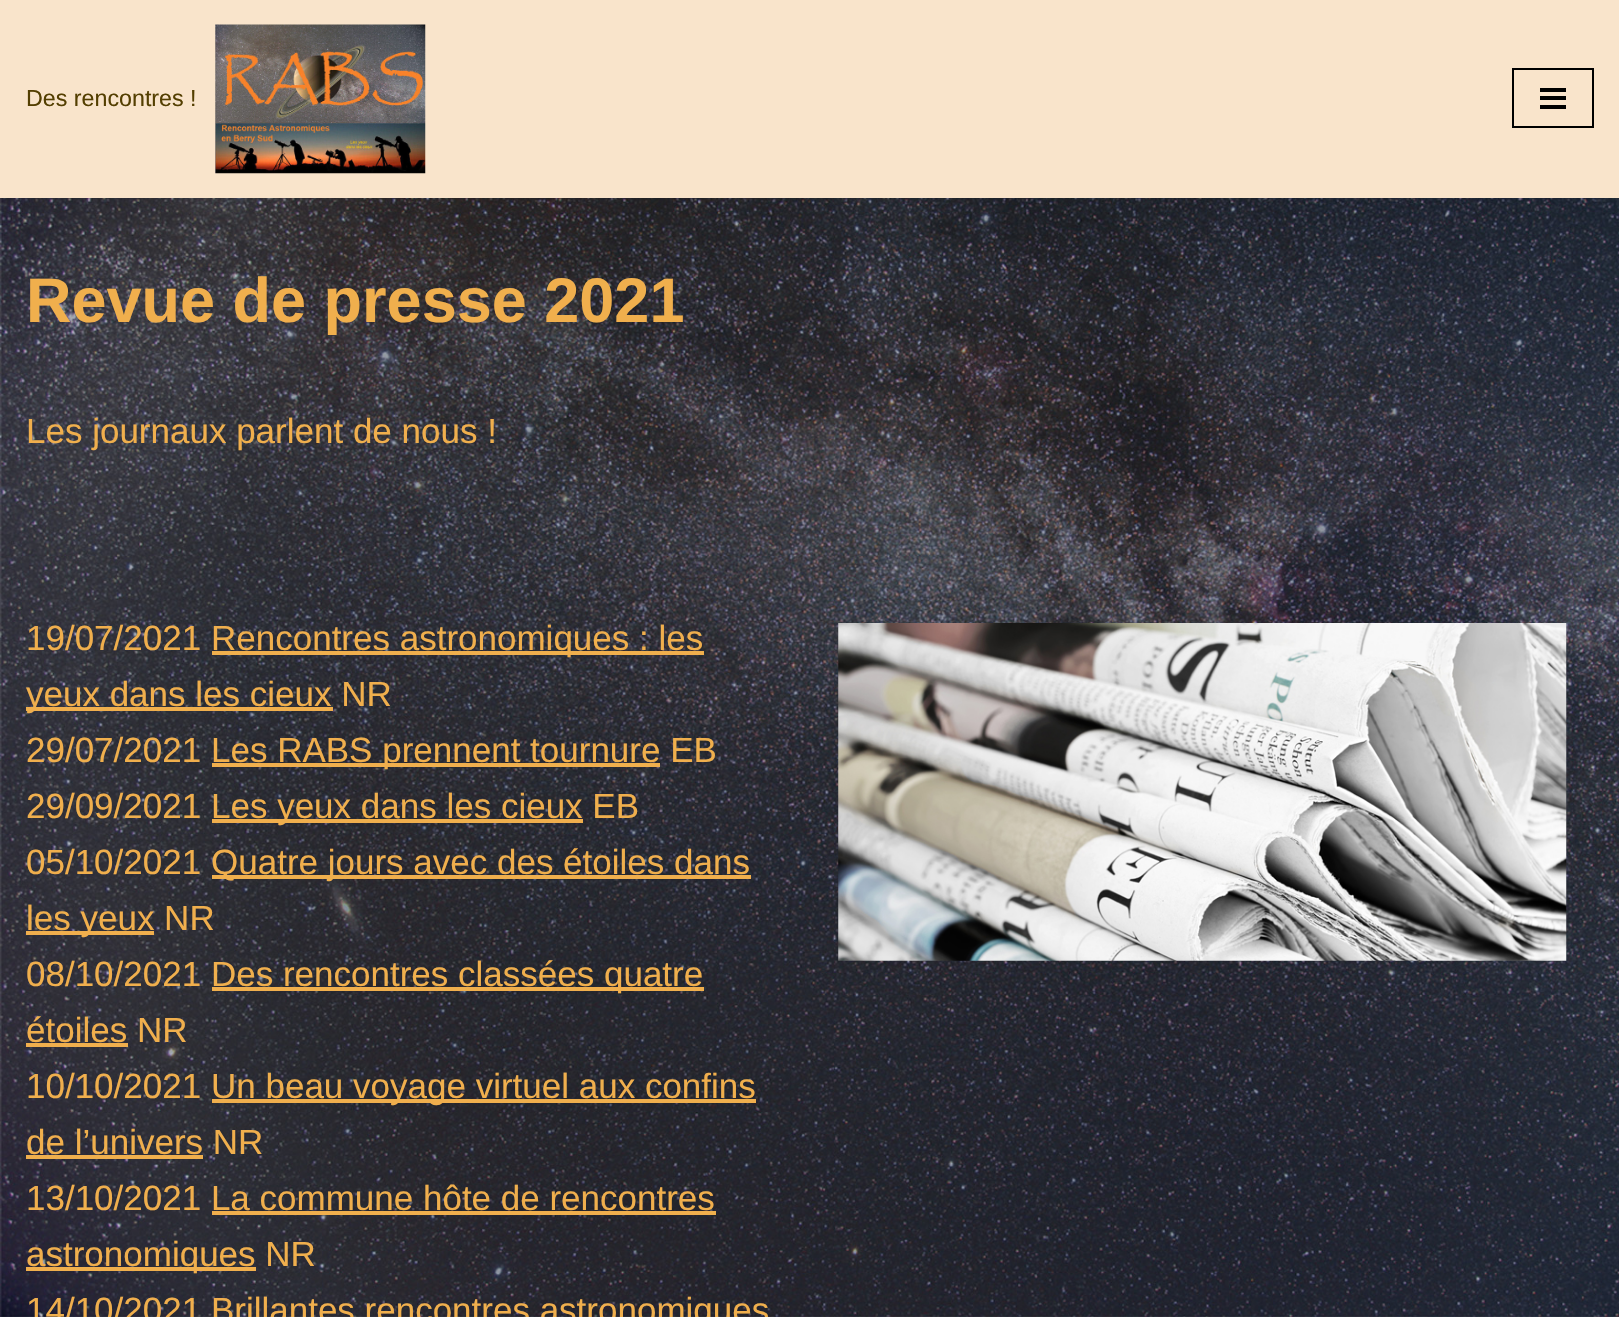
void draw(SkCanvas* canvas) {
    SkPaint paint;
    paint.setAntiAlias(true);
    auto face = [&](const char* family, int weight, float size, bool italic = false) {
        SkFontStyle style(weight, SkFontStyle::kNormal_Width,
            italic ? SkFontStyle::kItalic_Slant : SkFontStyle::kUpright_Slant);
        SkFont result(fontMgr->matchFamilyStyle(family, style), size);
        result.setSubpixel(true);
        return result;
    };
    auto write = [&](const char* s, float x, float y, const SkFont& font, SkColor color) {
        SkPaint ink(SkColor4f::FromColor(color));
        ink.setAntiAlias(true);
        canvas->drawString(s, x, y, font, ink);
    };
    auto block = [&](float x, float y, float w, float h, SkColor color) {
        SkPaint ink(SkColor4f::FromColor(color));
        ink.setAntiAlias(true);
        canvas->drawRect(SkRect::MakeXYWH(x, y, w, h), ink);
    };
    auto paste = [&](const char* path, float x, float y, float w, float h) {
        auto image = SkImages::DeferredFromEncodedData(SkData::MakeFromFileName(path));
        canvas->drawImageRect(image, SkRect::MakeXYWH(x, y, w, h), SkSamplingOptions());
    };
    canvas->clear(SK_ColorWHITE);
    paste("pic1.png", 0, 198, 1619, 1119);
    block(0, 0, 1619, 198, SkColorSetRGB(249, 228, 203));
    auto kFont1 = face("Liberation Sans", 400, 23.25f);
    write("Des rencontres !", 26, 106, kFont1, SkColorSetRGB(84, 63, 1));
    paste("pic2.png", 215, 24, 211, 150);
    paint.setStyle(SkPaint::kStroke_Style);
    paint.setStrokeWidth(2);
    paint.setColor(SK_ColorBLACK);
    canvas->drawRect(SkRect::MakeXYWH(1513, 69, 80, 58), paint);
    block(1540, 88, 26, 4, SK_ColorBLACK);
    block(1540, 96, 26, 4, SK_ColorBLACK);
    block(1540, 105, 26, 4, SK_ColorBLACK);
    auto kFont2 = face("Liberation Sans", 700, 63);
    write("Revue de presse 2021", 26, 322, kFont2, SkColorSetRGB(240, 175, 77));
    auto kFont3 = face("Liberation Sans", 400, 35);
    write("Les journaux parlent de nous !", 26, 443, kFont3, SkColorSetRGB(240, 175, 77));
    write("19/07/2021", 26, 650, kFont3, SkColorSetRGB(240, 175, 77));
    block(212, 651, 492, 4, SkColorSetRGB(240, 175, 77));
    write("Rencontres astronomiques : les", 211, 650, kFont3, SkColorSetRGB(240, 175, 77));
    block(26, 707, 307, 4, SkColorSetRGB(240, 175, 77));
    write("yeux dans les cieux NR", 26, 706, kFont3, SkColorSetRGB(240, 175, 77));
    write("29/07/2021", 26, 762, kFont3, SkColorSetRGB(240, 175, 77));
    block(212, 763, 448, 4, SkColorSetRGB(240, 175, 77));
    write("Les RABS prennent tournure EB", 211, 762, kFont3, SkColorSetRGB(240, 175, 77));
    write("29/09/2021", 26, 818, kFont3, SkColorSetRGB(240, 175, 77));
    block(212, 819, 371, 4, SkColorSetRGB(240, 175, 77));
    write("Les yeux dans les cieux EB", 211, 818, kFont3, SkColorSetRGB(240, 175, 77));
    write("05/10/2021", 26, 874, kFont3, SkColorSetRGB(240, 175, 77));
    block(212, 875, 539, 4, SkColorSetRGB(240, 175, 77));
    write("Quatre jours avec des étoiles dans", 211, 874, kFont3, SkColorSetRGB(240, 175, 77));
    block(26, 931, 128, 4, SkColorSetRGB(240, 175, 77));
    write("les yeux NR", 26, 930, kFont3, SkColorSetRGB(240, 175, 77));
    write("08/10/2021", 26, 986, kFont3, SkColorSetRGB(240, 175, 77));
    block(212, 987, 492, 4, SkColorSetRGB(240, 175, 77));
    write("Des rencontres classées quatre", 211, 986, kFont3, SkColorSetRGB(240, 175, 77));
    write("étoiles NR", 26, 1042, kFont3, SkColorSetRGB(240, 175, 77));
    block(26, 1043, 102, 4, SkColorSetRGB(240, 175, 77));
    write("10/10/2021", 26, 1098, kFont3, SkColorSetRGB(240, 175, 77));
    block(212, 1099, 544, 4, SkColorSetRGB(240, 175, 77));
    write("Un beau voyage virtuel aux confins", 211, 1098, kFont3, SkColorSetRGB(240, 175, 77));
    write("de l’univers NR", 26, 1154, kFont3, SkColorSetRGB(240, 175, 77));
    block(26, 1155, 177, 4, SkColorSetRGB(240, 175, 77));
    write("13/10/2021 La commune hôte de rencontres", 26, 1210, kFont3, SkColorSetRGB(240, 175, 77));
    block(26, 1267, 230, 4, SkColorSetRGB(240, 175, 77));
    write("astronomiques NR", 26, 1266, kFont3, SkColorSetRGB(240, 175, 77));
    block(212, 1211, 504, 4, SkColorSetRGB(240, 175, 77));
    write("14/10/2021 Brillantes rencontres astronomiques", 26, 1322, kFont3, SkColorSetRGB(240, 175, 77));
    paste("pic3.png", 838, 623, 729, 338);
}
